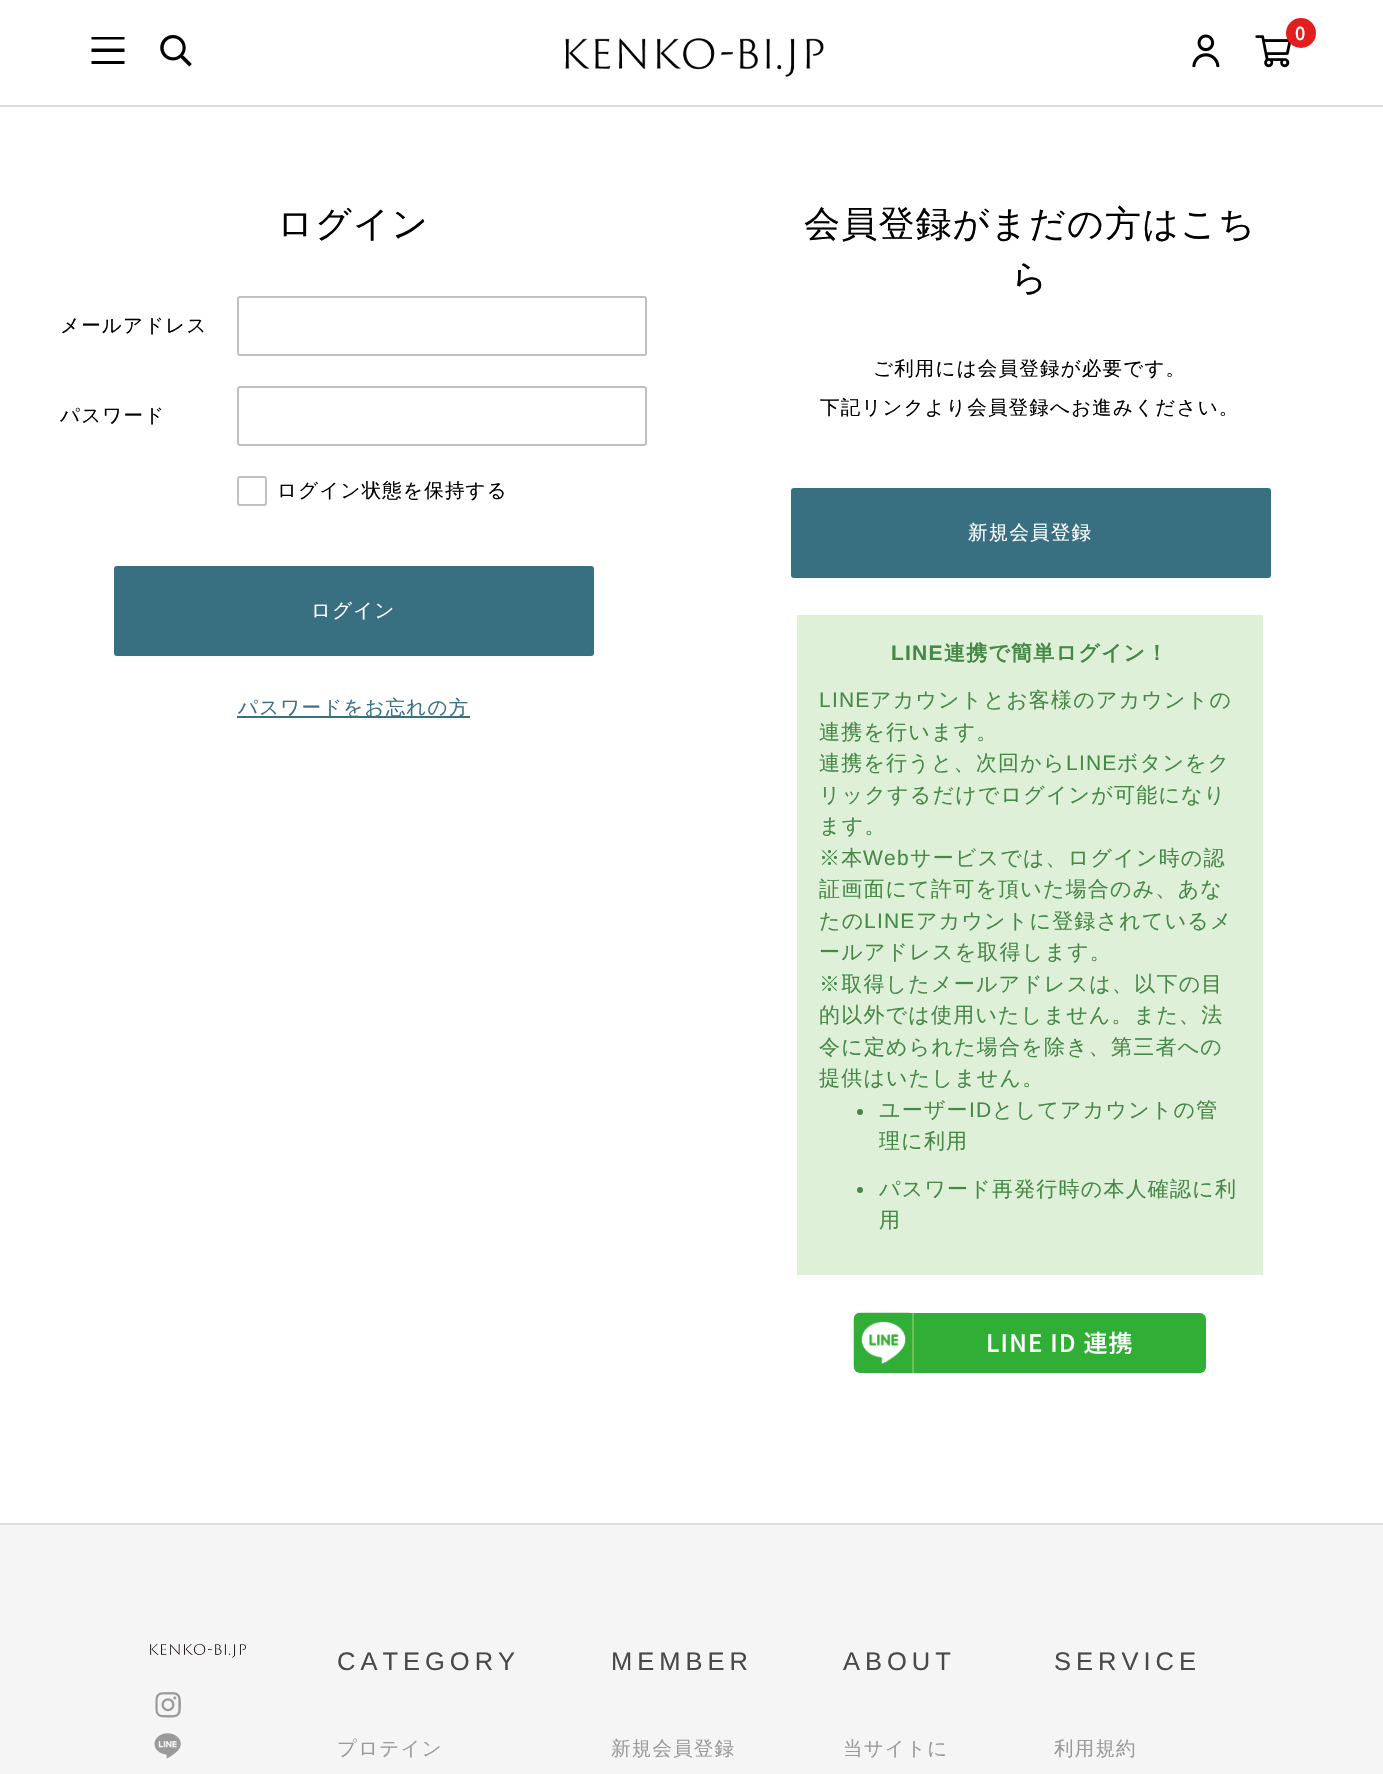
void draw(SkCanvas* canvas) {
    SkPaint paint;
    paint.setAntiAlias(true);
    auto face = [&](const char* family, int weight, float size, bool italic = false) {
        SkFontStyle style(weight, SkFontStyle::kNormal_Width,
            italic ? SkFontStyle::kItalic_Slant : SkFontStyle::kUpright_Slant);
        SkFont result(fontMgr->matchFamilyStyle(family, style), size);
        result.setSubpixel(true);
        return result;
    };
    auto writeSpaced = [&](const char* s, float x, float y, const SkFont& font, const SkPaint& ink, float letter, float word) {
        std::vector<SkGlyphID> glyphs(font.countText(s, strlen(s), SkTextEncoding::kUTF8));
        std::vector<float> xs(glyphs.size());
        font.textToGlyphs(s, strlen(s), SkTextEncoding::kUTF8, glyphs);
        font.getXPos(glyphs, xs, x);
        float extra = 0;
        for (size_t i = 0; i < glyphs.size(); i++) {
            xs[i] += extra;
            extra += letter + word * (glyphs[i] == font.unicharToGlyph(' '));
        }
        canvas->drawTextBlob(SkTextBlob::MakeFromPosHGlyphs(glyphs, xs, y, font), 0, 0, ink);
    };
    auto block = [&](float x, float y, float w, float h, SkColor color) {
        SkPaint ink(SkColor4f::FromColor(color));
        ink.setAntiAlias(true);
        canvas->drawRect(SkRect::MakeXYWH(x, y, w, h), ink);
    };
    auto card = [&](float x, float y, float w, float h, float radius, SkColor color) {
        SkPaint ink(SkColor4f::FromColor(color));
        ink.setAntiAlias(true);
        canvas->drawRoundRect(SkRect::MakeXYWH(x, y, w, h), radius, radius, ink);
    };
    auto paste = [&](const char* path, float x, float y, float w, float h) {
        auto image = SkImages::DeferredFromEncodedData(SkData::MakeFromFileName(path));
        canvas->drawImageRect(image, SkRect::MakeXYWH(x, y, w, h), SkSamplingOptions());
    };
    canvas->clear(SK_ColorWHITE);
    block(0, 105, 1383, 2, SkColorSetRGB(216, 221, 223));
    paste("pic1.png", 1192, 34, 28, 34);
    paste("pic2.png", 1255, 35, 36, 33);
    paint.setColor(SkColorSetRGB(226, 30, 30));
    canvas->drawCircle(1301, 33, 15, paint);
    auto kFont1 = face("Noto Sans JP", 100, 18);
    paint.setColor(SK_ColorWHITE);
    writeSpaced("0", 1295, 40, kFont1, paint, 1.2f, 0);
    paint.setColor(SK_ColorBLACK);
    canvas->drawPath(SkPathBuilder().moveTo(91.5f, 37).lineTo(124.5f, 37).lineTo(124.5f, 39.5f).lineTo(91.5f, 39.5f).close().moveTo(91.5f, 48.5f).lineTo(124.5f, 48.5f).lineTo(124.5f, 52).lineTo(91.5f, 52).close().moveTo(91.5f, 61).lineTo(124.5f, 61).lineTo(124.5f, 64).lineTo(91.5f, 64).close().detach(), paint);
    paste("pic3.png", 160, 35, 32, 32);
    paste("pic4.png", 565, 38, 259, 39);
    auto kFont2 = face("WenQuanYi Zen Hei", 500, 36);
    writeSpaced("ログイン", 277, 236, kFont2, paint, 1.2f, 0);
    auto kFont3 = face("WenQuanYi Zen Hei", 500, 19.5f);
    writeSpaced("メールアドレス", 60, 332, kFont3, paint, 1.2f, 0);
    paint.setStyle(SkPaint::kStroke_Style);
    paint.setStrokeWidth(2);
    paint.setColor(SkColorSetRGB(189, 193, 194));
    canvas->drawRoundRect(SkRect::MakeXYWH(238, 297, 408, 58), 2, 2, paint);
    paint.setStyle(SkPaint::kFill_Style);
    paint.setColor(SK_ColorBLACK);
    writeSpaced("パスワード", 60, 422, kFont3, paint, 1.2f, 0);
    paint.setStyle(SkPaint::kStroke_Style);
    paint.setColor(SkColorSetRGB(189, 193, 194));
    canvas->drawRoundRect(SkRect::MakeXYWH(238, 387, 408, 58), 2, 2, paint);
    canvas->drawRoundRect(SkRect::MakeXYWH(238, 477, 28, 28), 2, 2, paint);
    paint.setStyle(SkPaint::kFill_Style);
    paint.setColor(SK_ColorBLACK);
    writeSpaced("ログイン状態を保持する", 277, 497, kFont3, paint, 1.2f, 0);
    card(114, 566, 480, 90, 3, SkColorSetRGB(56, 111, 129));
    paint.setColor(SK_ColorWHITE);
    writeSpaced("ログイン", 311, 617, kFont3, paint, 1.2f, 0);
    block(237, 716, 233, 2, SkColorSetRGB(56, 111, 129));
    paint.setColor(SkColorSetRGB(56, 111, 129));
    writeSpaced("パスワードをお忘れの方", 238, 714, kFont3, paint, 1.2f, 0);
    paint.setColor(SK_ColorBLACK);
    writeSpaced("会員登録がまだの方はこち", 804, 236, kFont2, paint, 1.2f, 0);
    writeSpaced("ら", 1011, 290, kFont2, paint, 1.2f, 0);
    writeSpaced("ご利用には会員登録が必要です。", 873, 375, kFont3, paint, 1.2f, 0);
    writeSpaced("下記リンクより会員登録へお進みください。", 820, 414, kFont3, paint, 1.2f, 0);
    card(791, 488, 480, 90, 3, SkColorSetRGB(56, 111, 129));
    paint.setColor(SK_ColorWHITE);
    writeSpaced("新規会員登録", 968, 539, kFont3, paint, 1.2f, 0);
    block(797, 615, 466, 660, SkColorSetRGB(223, 240, 216));
    auto kFont4 = face("Liberation Sans", 700, 21);
    paint.setColor(SkColorSetRGB(70, 136, 71));
    writeSpaced("LINE", 891, 660, kFont4, paint, 1.2f, 0);
    auto kFont5 = face("WenQuanYi Zen Hei", 700, 21);
    writeSpaced("連携で簡単ログイン！", 944, 660, kFont5, paint, 1.2f, 0);
    auto kFont6 = face("Liberation Sans", 400, 21);
    writeSpaced("LINE", 819, 707, kFont6, paint, 1.2f, 0);
    auto kFont7 = face("WenQuanYi Zen Hei", 500, 21);
    writeSpaced("アカウントとお客様のアカウントの", 870, 707, kFont7, paint, 1.2f, 0);
    writeSpaced("連携を行います。", 819, 739, kFont7, paint, 1.2f, 0);
    writeSpaced("連携を行うと、次回から", 819, 770, kFont7, paint, 1.2f, 0);
    writeSpaced("LINE", 1066, 770, kFont6, paint, 1.2f, 0);
    writeSpaced("ボタンをク", 1117, 770, kFont7, paint, 1.2f, 0);
    writeSpaced("リックするだけでログインが可能になり", 819, 802, kFont7, paint, 1.2f, 0);
    writeSpaced("ます。", 819, 833, kFont7, paint, 1.2f, 0);
    writeSpaced("※本", 819, 865, kFont7, paint, 1.2f, 0);
    writeSpaced("Web", 863, 865, kFont6, paint, 1.2f, 0);
    writeSpaced("サービスでは、ログイン時の認", 910, 865, kFont7, paint, 1.2f, 0);
    writeSpaced("証画面にて許可を頂いた場合のみ、あな", 819, 896, kFont7, paint, 1.2f, 0);
    writeSpaced("たの", 819, 928, kFont7, paint, 1.2f, 0);
    writeSpaced("LINE", 864, 928, kFont6, paint, 1.2f, 0);
    writeSpaced("アカウントに登録されているメ", 916, 928, kFont7, paint, 1.2f, 0);
    writeSpaced("ールアドレスを取得します。", 819, 959, kFont7, paint, 1.2f, 0);
    writeSpaced("※取得したメールアドレスは、以下の目", 819, 991, kFont7, paint, 1.2f, 0);
    writeSpaced("的以外では使用いたしません。また、法", 819, 1022, kFont7, paint, 1.2f, 0);
    writeSpaced("令に定められた場合を除き、第三者への", 819, 1054, kFont7, paint, 1.2f, 0);
    writeSpaced("提供はいたしません。", 819, 1085, kFont7, paint, 1.2f, 0);
    canvas->drawCircle(860, 1112, 3, paint);
    writeSpaced("ユーザー", 879, 1117, kFont7, paint, 1.2f, 0);
    writeSpaced("ID", 969, 1117, kFont6, paint, 1.2f, 0);
    writeSpaced("としてアカウントの管", 992, 1117, kFont7, paint, 1.2f, 0);
    writeSpaced("理に利用", 879, 1148, kFont7, paint, 1.2f, 0);
    canvas->drawCircle(860, 1190, 3, paint);
    writeSpaced("パスワード再発行時の本人確認に利", 879, 1196, kFont7, paint, 1.2f, 0);
    writeSpaced("用", 879, 1227, kFont7, paint, 1.2f, 0);
    card(854, 1313, 352, 60, 6, SkColorSetRGB(49, 174, 54));
    paste("pic5.png", 853, 1312, 57, 61);
    block(912, 1313, 2, 60, SkColorSetRGB(112, 192, 83));
    auto kFont8 = face("Noto Sans JP", 100, 24);
    paint.setColor(SK_ColorWHITE);
    writeSpaced("LINE ID 連携", 986, 1352, kFont8, paint, 1.2f, 0);
    block(0, 1525, 1383, 249, SkColorSetRGB(245, 245, 245));
    block(0, 1523, 1383, 2, SkColorSetRGB(216, 221, 223));
    paste("pic6.png", 150, 1644, 96, 14);
    paste("pic7.png", 155, 1692, 26, 26);
    paste("pic8.png", 154, 1733, 27, 26);
    auto kFont9 = face("Liberation Sans", 400, 25.5f);
    paint.setColor(SkColorSetRGB(73, 73, 73));
    writeSpaced("CATEGORY", 337, 1670, kFont9, paint, 5, 0);
    paint.setColor(SkColorSetRGB(154, 154, 154));
    writeSpaced("プロテイン", 337, 1755, kFont3, paint, 1.2f, 0);
    paint.setColor(SkColorSetRGB(73, 73, 73));
    writeSpaced("MEMBER", 611, 1670, kFont9, paint, 5, 0);
    paint.setColor(SkColorSetRGB(154, 154, 154));
    writeSpaced("新規会員登録", 611, 1755, kFont3, paint, 1.2f, 0);
    paint.setColor(SkColorSetRGB(73, 73, 73));
    writeSpaced("ABOUT", 843, 1670, kFont9, paint, 5, 0);
    paint.setColor(SkColorSetRGB(154, 154, 154));
    writeSpaced("当サイトに", 843, 1755, kFont3, paint, 1.2f, 0);
    paint.setColor(SkColorSetRGB(73, 73, 73));
    writeSpaced("SERVICE", 1054, 1670, kFont9, paint, 5, 0);
    paint.setColor(SkColorSetRGB(154, 154, 154));
    writeSpaced("利用規約", 1054, 1755, kFont3, paint, 1.2f, 0);
}
